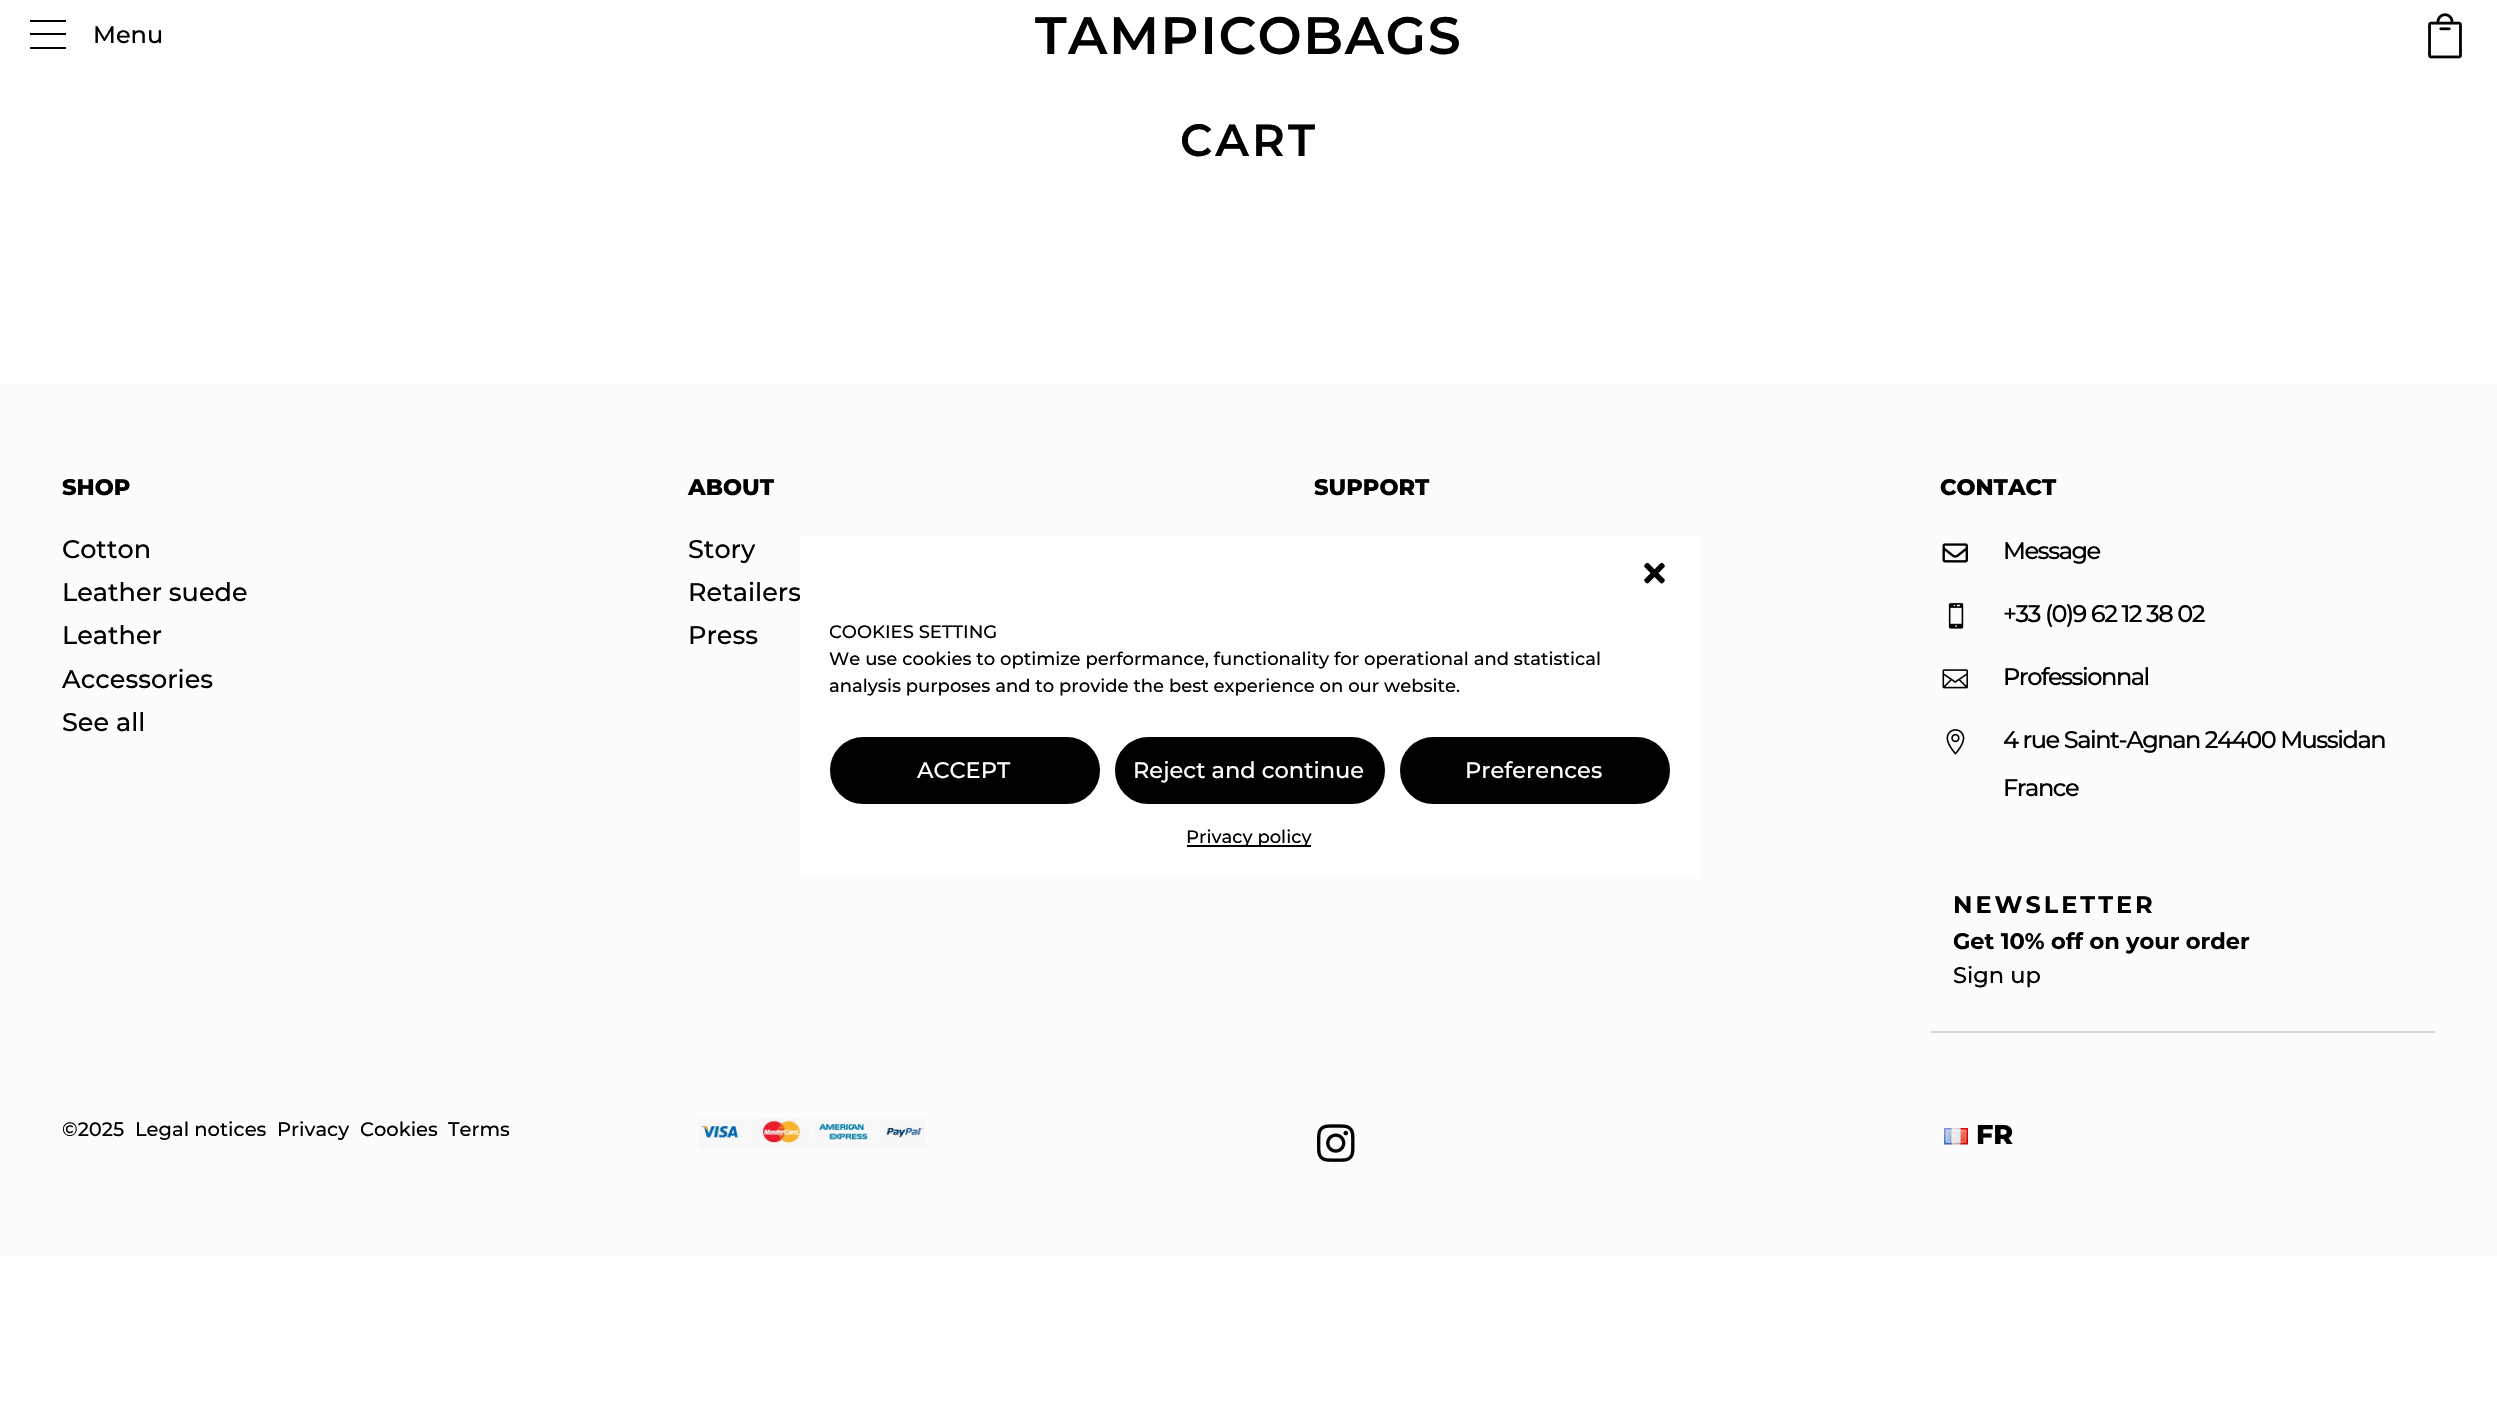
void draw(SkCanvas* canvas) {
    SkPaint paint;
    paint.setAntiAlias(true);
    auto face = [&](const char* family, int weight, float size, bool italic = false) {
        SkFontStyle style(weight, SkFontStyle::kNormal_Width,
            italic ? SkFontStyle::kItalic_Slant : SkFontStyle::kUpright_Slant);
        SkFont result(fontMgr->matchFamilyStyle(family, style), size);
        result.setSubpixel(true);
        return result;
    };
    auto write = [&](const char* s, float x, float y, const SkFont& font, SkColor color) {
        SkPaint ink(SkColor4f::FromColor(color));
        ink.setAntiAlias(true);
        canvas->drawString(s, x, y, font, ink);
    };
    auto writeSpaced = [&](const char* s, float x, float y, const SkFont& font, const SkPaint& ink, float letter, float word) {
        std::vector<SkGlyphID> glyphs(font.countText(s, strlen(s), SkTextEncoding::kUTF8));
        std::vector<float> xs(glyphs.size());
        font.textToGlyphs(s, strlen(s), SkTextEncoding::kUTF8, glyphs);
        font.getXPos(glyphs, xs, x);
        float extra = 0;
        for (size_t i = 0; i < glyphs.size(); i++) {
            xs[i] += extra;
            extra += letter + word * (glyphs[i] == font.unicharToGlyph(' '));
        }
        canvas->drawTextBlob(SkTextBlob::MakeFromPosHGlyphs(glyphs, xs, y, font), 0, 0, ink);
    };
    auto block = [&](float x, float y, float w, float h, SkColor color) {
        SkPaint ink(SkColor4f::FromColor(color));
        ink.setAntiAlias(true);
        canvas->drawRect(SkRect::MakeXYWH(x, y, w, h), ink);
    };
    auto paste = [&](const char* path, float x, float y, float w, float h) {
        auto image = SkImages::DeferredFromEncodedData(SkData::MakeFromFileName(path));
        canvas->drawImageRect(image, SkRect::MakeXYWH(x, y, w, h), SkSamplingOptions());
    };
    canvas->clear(SK_ColorWHITE);
    block(30, 20, 36, 2, SK_ColorBLACK);
    block(30, 33, 36, 2, SK_ColorBLACK);
    block(30, 47, 36, 2, SK_ColorBLACK);
    auto kFont1 = face("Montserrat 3", 100, 24);
    write("Menu", 93, 43, kFont1, SK_ColorBLACK);
    auto kFont2 = face("Montserrat", 100, 52.5f);
    paint.setColor(SK_ColorBLACK);
    writeSpaced("TAMPICOBAGS", 1035, 54, kFont2, paint, 1.5f, 0);
    paste("pic1.png", 2428, 13, 34, 46);
    auto kFont3 = face("Montserrat", 100, 45);
    writeSpaced("CART", 1180, 156, kFont3, paint, 3, 0);
    block(0, 384, 2497, 872, SkColorSetRGB(252, 252, 252));
    auto kFont4 = face("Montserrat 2", 100, 22.5f);
    write("SHOP", 62, 495, kFont4, SK_ColorBLACK);
    auto kFont5 = face("Montserrat 3", 100, 25.5f);
    write("Cotton", 62, 558, kFont5, SK_ColorBLACK);
    write("Leather suede", 62, 601, kFont5, SK_ColorBLACK);
    write("Leather", 62, 644, kFont5, SK_ColorBLACK);
    write("Accessories", 62, 688, kFont5, SK_ColorBLACK);
    write("See all", 62, 731, kFont5, SK_ColorBLACK);
    write("ABOUT", 688, 495, kFont4, SK_ColorBLACK);
    write("Story", 688, 558, kFont5, SK_ColorBLACK);
    write("Retailers", 688, 601, kFont5, SK_ColorBLACK);
    write("Press", 688, 644, kFont5, SK_ColorBLACK);
    write("SUPPORT", 1314, 495, kFont4, SK_ColorBLACK);
    write("CONTACT", 1940, 495, kFont4, SK_ColorBLACK);
    paste("pic2.png", 1942, 543, 26, 20);
    writeSpaced("Message", 2003, 559, kFont1, paint, -1.5f, 0);
    paste("pic3.png", 1948, 603, 16, 26);
    writeSpaced("+33 (0)9 62 12 38 02", 2003, 622, kFont1, paint, -1.5f, 0);
    paste("pic4.png", 1942, 669, 26, 20);
    writeSpaced("Professionnal", 2003, 685, kFont1, paint, -1.5f, 0);
    paste("pic5.png", 1946, 729, 19, 26);
    writeSpaced("4 rue Saint-Agnan 24400 Mussidan", 2003, 748, kFont1, paint, -1.5f, 0);
    writeSpaced("France", 2003, 796, kFont1, paint, -1.5f, 0);
    block(1931, 1031, 504, 2, SkColorSetRGB(214, 214, 214));
    auto kFont6 = face("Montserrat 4", 100, 24);
    writeSpaced("NEWSLETTER", 1953, 913, kFont6, paint, 3, 0);
    auto kFont7 = face("Montserrat 4", 100, 22.5f);
    write("Get 10% off on your order", 1953, 949, kFont7, SK_ColorBLACK);
    auto kFont8 = face("Montserrat 3", 100, 22.5f);
    write("Sign up", 1953, 983, kFont8, SK_ColorBLACK);
    auto kFont9 = face("Montserrat 3", 100, 19.5f);
    write("©2025", 62, 1136, kFont9, SK_ColorBLACK);
    write("Legal notices", 135, 1136, kFont9, SK_ColorBLACK);
    write("Privacy", 277, 1136, kFont9, SK_ColorBLACK);
    write("Cookies", 360, 1136, kFont9, SK_ColorBLACK);
    write("Terms", 448, 1136, kFont9, SK_ColorBLACK);
    paste("pic6.png", 698, 1118, 229, 31);
    paste("pic7.png", 1317, 1124, 38, 38);
    paste("pic8.png", 1944, 1128, 24, 17);
    auto kFont10 = face("Montserrat 2", 100, 27);
    write("FR", 1976, 1144, kFont10, SK_ColorBLACK);
    block(800, 536, 900, 342, SK_ColorWHITE);
    paste("pic9.png", 1644, 562, 21, 22);
    canvas->save();
    canvas->clipRect(SkRect::MakeXYWH(830, 618, 840, 89));
    auto kFont11 = face("Montserrat 3", 100, 18);
    write("COOKIES SETTING", 829, 638, kFont11, SK_ColorBLACK);
    canvas->restore();
    write("We use cookies to optimize performance, functionality for operational and statistical", 829, 665, kFont11, SK_ColorBLACK);
    canvas->save();
    canvas->clipRect(SkRect::MakeXYWH(830, 618, 840, 89));
    write("analysis purposes and to provide the best experience on our website.", 829, 692, kFont11, SK_ColorBLACK);
    canvas->restore();
    canvas->drawRoundRect(SkRect::MakeXYWH(831, 738, 268, 65), 32.5f, 32.5f, paint);
    paint.setStyle(SkPaint::kStroke_Style);
    paint.setStrokeWidth(2);
    canvas->drawRoundRect(SkRect::MakeXYWH(831, 738, 268, 65), 32.5f, 32.5f, paint);
    write("ACCEPT", 917, 778, kFont8, SK_ColorWHITE);
    paint.setStyle(SkPaint::kFill_Style);
    canvas->drawRoundRect(SkRect::MakeXYWH(1116, 738, 268, 65), 32.5f, 32.5f, paint);
    paint.setStyle(SkPaint::kStroke_Style);
    canvas->drawRoundRect(SkRect::MakeXYWH(1116, 738, 268, 65), 32.5f, 32.5f, paint);
    write("Reject and continue", 1133, 778, kFont8, SK_ColorWHITE);
    paint.setStyle(SkPaint::kFill_Style);
    canvas->drawRoundRect(SkRect::MakeXYWH(1401, 738, 268, 65), 32.5f, 32.5f, paint);
    paint.setStyle(SkPaint::kStroke_Style);
    canvas->drawRoundRect(SkRect::MakeXYWH(1401, 738, 268, 65), 32.5f, 32.5f, paint);
    write("Preferences", 1465, 778, kFont8, SK_ColorWHITE);
    block(1187, 845, 124, 2, SK_ColorBLACK);
    write("Privacy policy", 1186, 843, kFont11, SK_ColorBLACK);
}
